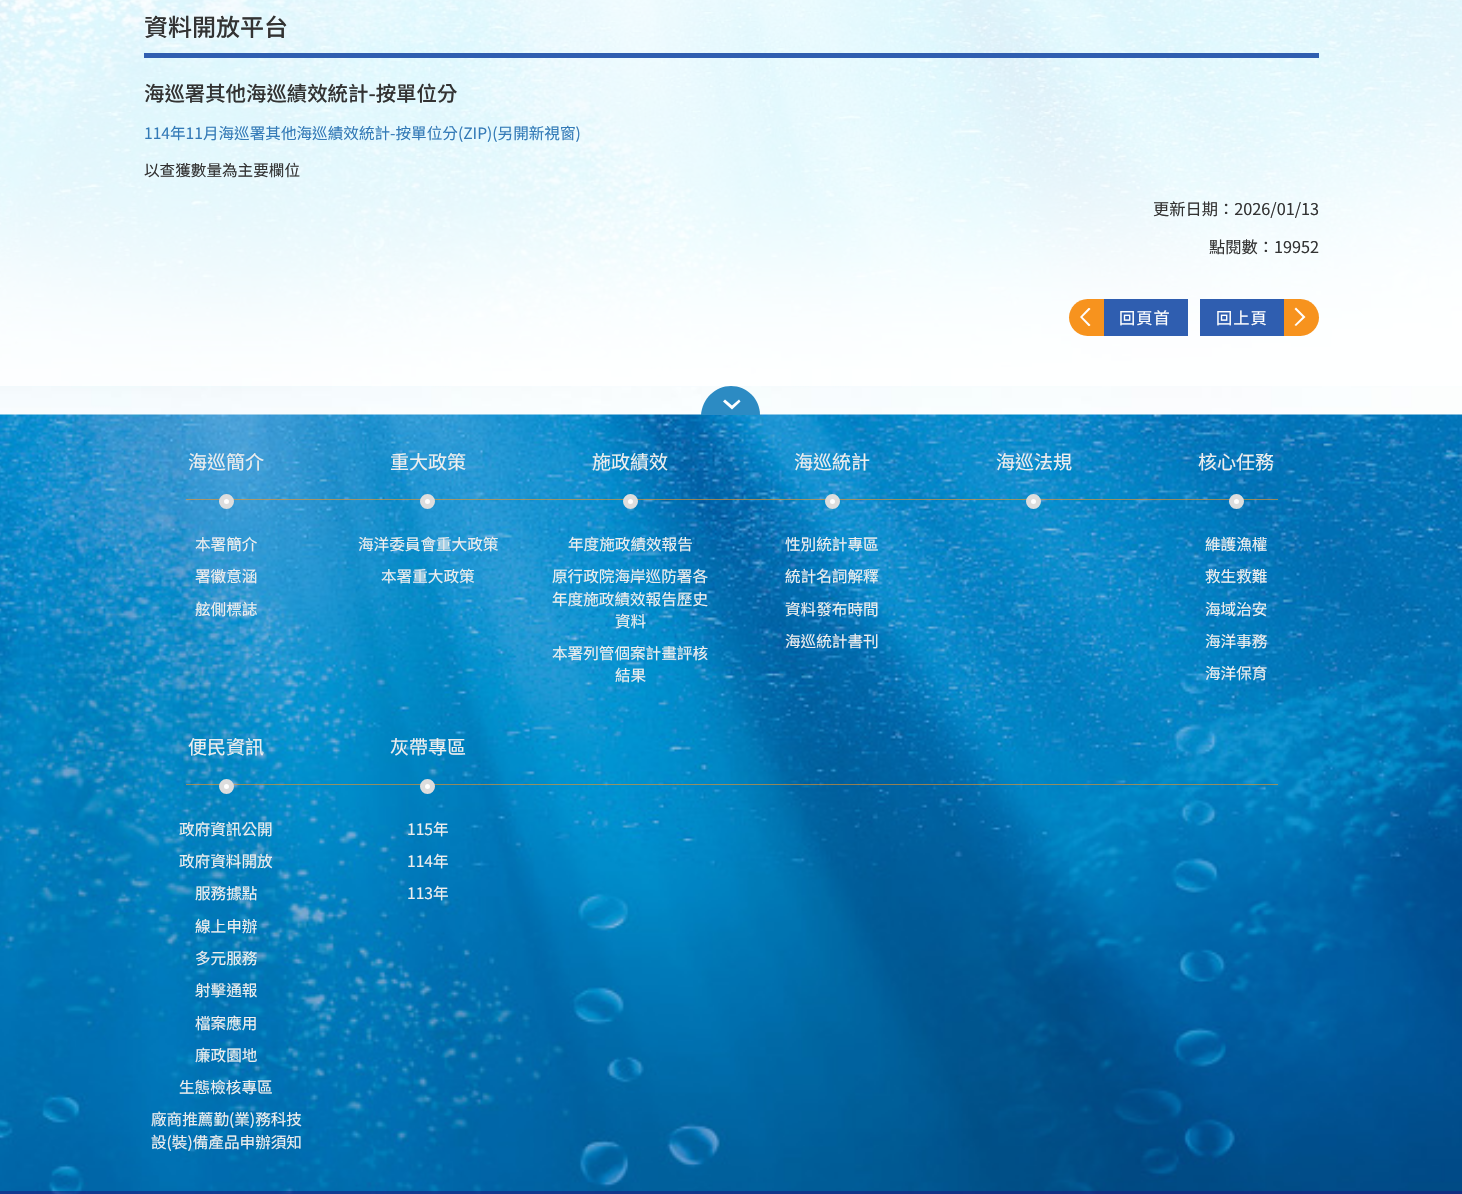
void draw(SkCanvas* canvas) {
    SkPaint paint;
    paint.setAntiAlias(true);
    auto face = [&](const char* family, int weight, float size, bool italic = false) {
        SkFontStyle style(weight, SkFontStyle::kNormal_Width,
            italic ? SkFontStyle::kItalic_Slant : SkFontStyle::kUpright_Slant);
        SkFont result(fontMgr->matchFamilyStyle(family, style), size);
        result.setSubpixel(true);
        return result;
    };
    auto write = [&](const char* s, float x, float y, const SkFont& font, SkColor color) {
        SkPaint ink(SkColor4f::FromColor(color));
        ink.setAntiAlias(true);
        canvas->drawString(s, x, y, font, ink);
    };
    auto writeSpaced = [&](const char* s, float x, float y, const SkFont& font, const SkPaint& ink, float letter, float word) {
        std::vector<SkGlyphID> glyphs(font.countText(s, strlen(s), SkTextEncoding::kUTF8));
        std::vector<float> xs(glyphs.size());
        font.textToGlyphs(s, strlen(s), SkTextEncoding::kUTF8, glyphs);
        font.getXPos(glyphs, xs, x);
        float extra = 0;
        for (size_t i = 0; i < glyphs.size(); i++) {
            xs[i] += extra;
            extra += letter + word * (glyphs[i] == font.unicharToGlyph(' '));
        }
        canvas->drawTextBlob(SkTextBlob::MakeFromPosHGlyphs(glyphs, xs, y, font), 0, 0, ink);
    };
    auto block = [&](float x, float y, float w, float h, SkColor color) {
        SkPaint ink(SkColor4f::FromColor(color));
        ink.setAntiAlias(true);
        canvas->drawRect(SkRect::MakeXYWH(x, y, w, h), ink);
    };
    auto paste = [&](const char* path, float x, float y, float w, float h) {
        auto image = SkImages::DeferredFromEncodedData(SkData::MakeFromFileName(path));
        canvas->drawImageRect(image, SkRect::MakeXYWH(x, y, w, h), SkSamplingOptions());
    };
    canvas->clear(SK_ColorWHITE);
    paste("pic1.png", 0, 0, 1462, 415);
    block(0, 0, 1462, 386, SkColorSetARGB(204, 255, 255, 255));
    block(144, 53, 1175, 5, SkColorSetRGB(47, 94, 176));
    auto kFont1 = face("Noto Sans TC", 500, 24);
    write("資料開放平台", 144, 36, kFont1, SkColorSetRGB(51, 51, 51));
    auto kFont2 = face("Noto Sans TC", 500, 20.4f);
    write("海巡署其他海巡績效統計-按單位分", 144, 101, kFont2, SkColorSetRGB(51, 51, 51));
    auto kFont3 = face("Noto Sans TC", 400, 15.6f);
    write("114年11月海巡署其他海巡績效統計-按單位分(ZIP)(另開新視窗)", 144, 139, kFont3, SkColorSetRGB(51, 122, 183));
    write("以查獲數量為主要欄位", 144, 176, kFont3, SkColorSetRGB(51, 51, 51));
    auto kFont4 = face("Noto Sans TC", 400, 16.25f);
    write("更新日期：2026/01/13", 1153, 215, kFont4, SkColorSetRGB(51, 51, 51));
    write("點閱數：19952", 1209, 253, kFont4, SkColorSetRGB(51, 51, 51));
    paint.setColor(SkColorSetRGB(247, 147, 30));
    canvas->drawPath(SkPathBuilder().moveTo(1087.5f, 299).lineTo(1104, 299).lineTo(1104, 336).lineTo(1087.5f, 336).cubicTo(1077.5f, 336, 1069, 327.5f, 1069, 317.5f).cubicTo(1069, 307.5f, 1077.5f, 299, 1087.5f, 299).close().detach(), paint);
    canvas->save();
    canvas->clipRect(SkRect::MakeXYWH(1076, 308, 20, 18));
    paint.setColor(SK_ColorWHITE);
    canvas->drawPath(SkPathBuilder().moveTo(1089, 307.5f).lineTo(1090.5f, 309).lineTo(1082.5f, 317).lineTo(1090.5f, 325).lineTo(1089, 326.5f).lineTo(1080, 317).close().detach(), paint);
    canvas->restore();
    block(1104, 299, 84, 37, SkColorSetRGB(47, 94, 176));
    writeSpaced("回頁首", 1119, 324, kFont4, paint, 1, 0);
    block(1200, 299, 84, 37, SkColorSetRGB(47, 94, 176));
    writeSpaced("回上頁", 1216, 324, kFont4, paint, 1, 0);
    paint.setColor(SkColorSetRGB(247, 147, 30));
    canvas->drawPath(SkPathBuilder().moveTo(1284, 299).lineTo(1300.5f, 299).cubicTo(1310.5f, 299, 1319, 307.5f, 1319, 317.5f).cubicTo(1319, 327.5f, 1310.5f, 336, 1300.5f, 336).lineTo(1284, 336).close().detach(), paint);
    paint.setColor(SK_ColorWHITE);
    canvas->drawPath(SkPathBuilder().moveTo(1296, 326).lineTo(1294.5f, 325).lineTo(1302.5f, 317).lineTo(1294.5f, 309).lineTo(1296, 307.5f).lineTo(1305.5f, 317).close().detach(), paint);
    paste("pic2.png", 0, 414, 1462, 780);
    paint.setColor(SkColorSetRGB(44, 139, 195));
    canvas->drawPath(SkPathBuilder().moveTo(731, 386).cubicTo(715, 386, 702, 399, 701, 415).lineTo(760, 415).cubicTo(760, 399, 747, 386, 731, 386).close().detach(), paint);
    paint.setColor(SK_ColorWHITE);
    canvas->drawPath(SkPathBuilder().moveTo(739, 399.5f).lineTo(732, 405.5f).lineTo(725, 399.5f).lineTo(723, 401.5f).lineTo(732, 409.5f).lineTo(740.5f, 401.5f).close().detach(), paint);
    auto kFont5 = face("Noto Sans TC", 400, 19);
    write("海巡簡介", 188, 469, kFont5, SkColorSetRGB(238, 238, 238));
    block(186, 499, 1092, 1, SkColorSetARGB(153, 247, 147, 30));
    canvas->drawCircle(226.5f, 501.5f, 5, paint);
    paint.setStyle(SkPaint::kStroke_Style);
    paint.setStrokeWidth(5);
    paint.setColor(SkColorSetRGB(221, 221, 221));
    canvas->drawCircle(226.5f, 501.5f, 5, paint);
    write("本署簡介", 195, 550, kFont3, SkColorSetRGB(238, 238, 238));
    write("署徽意涵", 195, 582, kFont3, SkColorSetRGB(238, 238, 238));
    write("舷側標誌", 195, 615, kFont3, SkColorSetRGB(238, 238, 238));
    write("重大政策", 390, 469, kFont5, SkColorSetRGB(238, 238, 238));
    paint.setStyle(SkPaint::kFill_Style);
    paint.setColor(SK_ColorWHITE);
    canvas->drawCircle(427.5f, 501.5f, 5, paint);
    paint.setStyle(SkPaint::kStroke_Style);
    paint.setColor(SkColorSetRGB(221, 221, 221));
    canvas->drawCircle(427.5f, 501.5f, 5, paint);
    write("海洋委員會重大政策", 358, 550, kFont3, SkColorSetRGB(238, 238, 238));
    write("本署重大政策", 381, 582, kFont3, SkColorSetRGB(238, 238, 238));
    write("施政績效", 592, 469, kFont5, SkColorSetRGB(238, 238, 238));
    paint.setStyle(SkPaint::kFill_Style);
    paint.setColor(SK_ColorWHITE);
    canvas->drawCircle(630.5f, 501.5f, 5, paint);
    paint.setStyle(SkPaint::kStroke_Style);
    paint.setColor(SkColorSetRGB(221, 221, 221));
    canvas->drawCircle(630.5f, 501.5f, 5, paint);
    write("年度施政績效報告", 568, 550, kFont3, SkColorSetRGB(238, 238, 238));
    write("原行政院海岸巡防署各", 552, 582, kFont3, SkColorSetRGB(238, 238, 238));
    write("年度施政績效報告歷史", 552, 605, kFont3, SkColorSetRGB(238, 238, 238));
    write("資料", 615, 627, kFont3, SkColorSetRGB(238, 238, 238));
    write("本署列管個案計畫評核", 552, 659, kFont3, SkColorSetRGB(238, 238, 238));
    write("結果", 615, 681, kFont3, SkColorSetRGB(238, 238, 238));
    write("海巡統計", 794, 469, kFont5, SkColorSetRGB(238, 238, 238));
    paint.setStyle(SkPaint::kFill_Style);
    paint.setColor(SK_ColorWHITE);
    canvas->drawCircle(832.5f, 501.5f, 5, paint);
    paint.setStyle(SkPaint::kStroke_Style);
    paint.setColor(SkColorSetRGB(221, 221, 221));
    canvas->drawCircle(832.5f, 501.5f, 5, paint);
    write("性別統計專區", 785, 550, kFont3, SkColorSetRGB(238, 238, 238));
    write("統計名詞解釋", 785, 582, kFont3, SkColorSetRGB(238, 238, 238));
    write("資料發布時間", 785, 615, kFont3, SkColorSetRGB(238, 238, 238));
    write("海巡統計書刊", 785, 647, kFont3, SkColorSetRGB(238, 238, 238));
    write("海巡法規", 996, 469, kFont5, SkColorSetRGB(238, 238, 238));
    paint.setStyle(SkPaint::kFill_Style);
    paint.setColor(SK_ColorWHITE);
    canvas->drawCircle(1033.5f, 501.5f, 5, paint);
    paint.setStyle(SkPaint::kStroke_Style);
    paint.setColor(SkColorSetRGB(221, 221, 221));
    canvas->drawCircle(1033.5f, 501.5f, 5, paint);
    write("核心任務", 1198, 469, kFont5, SkColorSetRGB(238, 238, 238));
    paint.setStyle(SkPaint::kFill_Style);
    paint.setColor(SK_ColorWHITE);
    canvas->drawCircle(1236.5f, 501.5f, 5, paint);
    paint.setStyle(SkPaint::kStroke_Style);
    paint.setColor(SkColorSetRGB(221, 221, 221));
    canvas->drawCircle(1236.5f, 501.5f, 5, paint);
    write("維護漁權", 1205, 550, kFont3, SkColorSetRGB(238, 238, 238));
    write("救生救難", 1205, 582, kFont3, SkColorSetRGB(238, 238, 238));
    write("海域治安", 1205, 615, kFont3, SkColorSetRGB(238, 238, 238));
    write("海洋事務", 1205, 647, kFont3, SkColorSetRGB(238, 238, 238));
    write("海洋保育", 1205, 679, kFont3, SkColorSetRGB(238, 238, 238));
    write("便民資訊", 188, 754, kFont5, SkColorSetRGB(238, 238, 238));
    block(186, 784, 1092, 1, SkColorSetARGB(153, 247, 147, 30));
    paint.setStyle(SkPaint::kFill_Style);
    paint.setColor(SK_ColorWHITE);
    canvas->drawCircle(226.5f, 786.5f, 5, paint);
    paint.setStyle(SkPaint::kStroke_Style);
    paint.setColor(SkColorSetRGB(221, 221, 221));
    canvas->drawCircle(226.5f, 786.5f, 5, paint);
    write("政府資訊公開", 179, 835, kFont3, SkColorSetRGB(238, 238, 238));
    write("政府資料開放", 179, 867, kFont3, SkColorSetRGB(238, 238, 238));
    write("服務據點", 195, 899, kFont3, SkColorSetRGB(238, 238, 238));
    write("線上申辦", 195, 932, kFont3, SkColorSetRGB(238, 238, 238));
    write("多元服務", 195, 964, kFont3, SkColorSetRGB(238, 238, 238));
    write("射擊通報", 195, 996, kFont3, SkColorSetRGB(238, 238, 238));
    write("檔案應用", 195, 1029, kFont3, SkColorSetRGB(238, 238, 238));
    write("廉政園地", 195, 1061, kFont3, SkColorSetRGB(238, 238, 238));
    write("生態檢核專區", 179, 1093, kFont3, SkColorSetRGB(238, 238, 238));
    write("廠商推薦勤(業)務科技", 151, 1125, kFont3, SkColorSetRGB(238, 238, 238));
    write("設(裝)備產品申辦須知", 151, 1148, kFont3, SkColorSetRGB(238, 238, 238));
    write("灰帶專區", 390, 754, kFont5, SkColorSetRGB(238, 238, 238));
    paint.setStyle(SkPaint::kFill_Style);
    paint.setColor(SK_ColorWHITE);
    canvas->drawCircle(427.5f, 786.5f, 5, paint);
    paint.setStyle(SkPaint::kStroke_Style);
    paint.setColor(SkColorSetRGB(221, 221, 221));
    canvas->drawCircle(427.5f, 786.5f, 5, paint);
    write("115年", 407, 835, kFont3, SkColorSetRGB(238, 238, 238));
    write("114年", 407, 867, kFont3, SkColorSetRGB(238, 238, 238));
    write("113年", 407, 899, kFont3, SkColorSetRGB(238, 238, 238));
    block(0, 1191, 1462, 3, SkColorSetARGB(153, 27, 29, 129));
}
